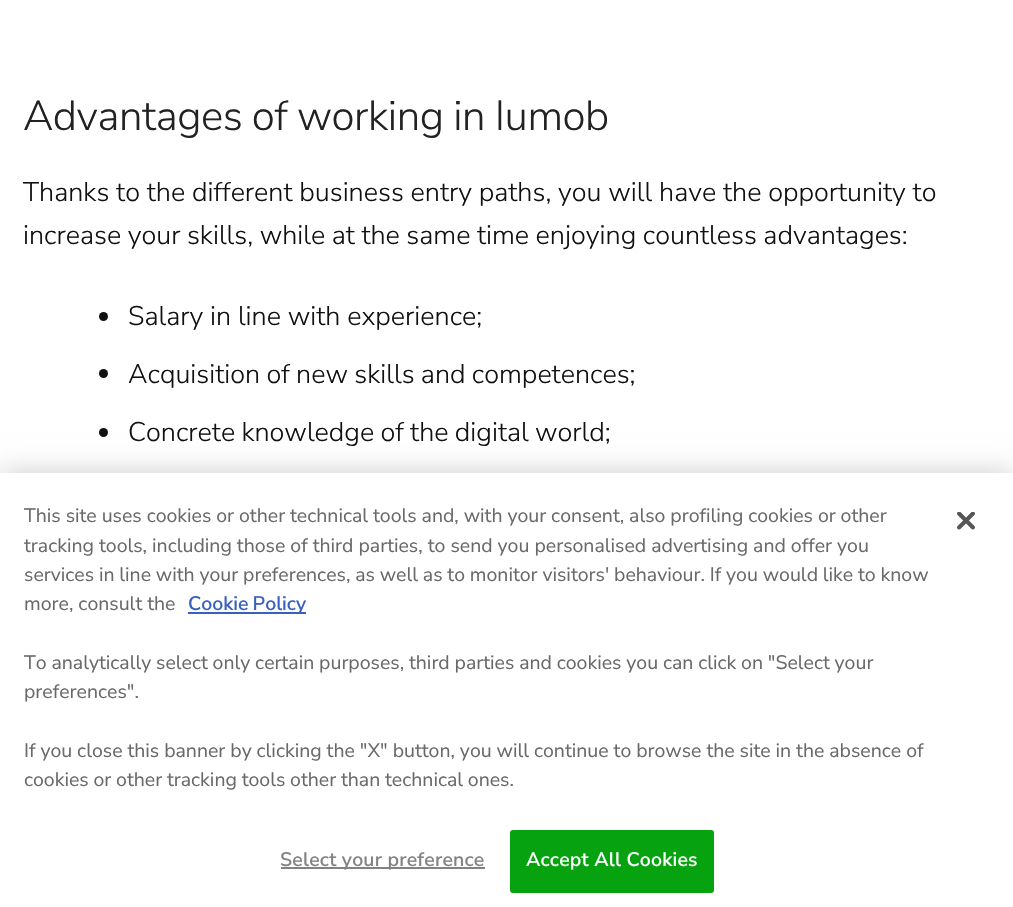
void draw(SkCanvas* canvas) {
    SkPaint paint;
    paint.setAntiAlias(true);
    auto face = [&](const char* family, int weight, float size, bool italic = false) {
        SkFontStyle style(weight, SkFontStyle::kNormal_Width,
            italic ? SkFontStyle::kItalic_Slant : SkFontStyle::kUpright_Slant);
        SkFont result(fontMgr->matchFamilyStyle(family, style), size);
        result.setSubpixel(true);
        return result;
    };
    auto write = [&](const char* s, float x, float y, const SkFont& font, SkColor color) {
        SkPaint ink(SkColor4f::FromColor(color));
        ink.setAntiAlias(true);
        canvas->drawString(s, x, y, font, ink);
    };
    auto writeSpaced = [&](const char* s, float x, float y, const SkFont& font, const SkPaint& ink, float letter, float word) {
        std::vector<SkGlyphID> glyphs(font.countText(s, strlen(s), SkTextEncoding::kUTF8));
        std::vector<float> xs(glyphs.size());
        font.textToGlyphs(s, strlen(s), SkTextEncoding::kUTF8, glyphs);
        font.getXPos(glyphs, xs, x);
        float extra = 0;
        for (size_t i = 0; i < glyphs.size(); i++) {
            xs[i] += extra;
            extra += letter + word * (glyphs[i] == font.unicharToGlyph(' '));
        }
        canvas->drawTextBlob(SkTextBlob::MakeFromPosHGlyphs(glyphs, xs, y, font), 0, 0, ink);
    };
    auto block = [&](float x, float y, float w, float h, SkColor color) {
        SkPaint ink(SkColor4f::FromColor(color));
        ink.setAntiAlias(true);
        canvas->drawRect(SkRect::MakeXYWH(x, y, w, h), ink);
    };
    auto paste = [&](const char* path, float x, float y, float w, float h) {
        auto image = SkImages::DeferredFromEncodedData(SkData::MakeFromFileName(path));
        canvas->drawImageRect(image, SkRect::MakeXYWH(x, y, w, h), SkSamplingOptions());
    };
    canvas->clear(SK_ColorWHITE);
    auto kFont1 = face("Nunito Sans", 300, 42);
    paint.setColor(SkColorSetRGB(34, 34, 34));
    writeSpaced("Advantages of working in Iumob", 23, 130, kFont1, paint, -0.45f, -0.5f);
    auto kFont2 = face("Nunito Sans", 300, 27);
    write("Thanks to the different business entry paths, you will have the opportunity to", 23, 201, kFont2, SkColorSetRGB(17, 17, 17));
    paint.setColor(SkColorSetRGB(17, 17, 17));
    writeSpaced("increase your skills, while at the same time enjoying countless advantages:", 23, 244, kFont2, paint, 0, -0.25f);
    canvas->drawCircle(103.5f, 316.5f, 4.5f, paint);
    write("Salary in line with experience;", 128, 325, kFont2, SkColorSetRGB(17, 17, 17));
    canvas->drawCircle(103.5f, 373.5f, 4.5f, paint);
    writeSpaced("Acquisition of new skills and competences;", 128, 383, kFont2, paint, 0, -0.5f);
    canvas->drawCircle(103.5f, 432.5f, 4.5f, paint);
    writeSpaced("Concrete knowledge of the digital world;", 128, 441, kFont2, paint, 0, -0.5f);
    paint.setColor(SkColorSetARGB(51, 0, 0, 0));
    paint.setMaskFilter(SkMaskFilter::MakeBlur(kNormal_SkBlurStyle, 13.5f));
    canvas->drawRect(SkRect::MakeXYWH(0, 473, 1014, 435), paint);
    paint.setMaskFilter(nullptr);
    block(0, 473, 1013, 434, SK_ColorWHITE);
    auto kFont3 = face("Nunito Sans", 400, 19.5f);
    paint.setColor(SkColorSetRGB(105, 105, 105));
    writeSpaced("This site uses cookies or other technical tools and, with your consent, also profiling cookies or other", 24, 522, kFont3, paint, 0, -0.1f);
    write("tracking tools, including those of third parties, to send you personalised advertising and offer you", 24, 552, kFont3, SkColorSetRGB(105, 105, 105));
    writeSpaced("services in line with your preferences, as well as to monitor visitors' behaviour. If you would like to know", 24, 581, kFont3, paint, 0, -0.2f);
    write("more, consult the", 24, 610, kFont3, SkColorSetRGB(105, 105, 105));
    block(188, 612, 118, 2, SkColorSetRGB(56, 96, 190));
    auto kFont4 = face("Nunito Sans", 600, 19.5f);
    paint.setColor(SkColorSetRGB(56, 96, 190));
    writeSpaced("Cookie Policy", 188, 610, kFont4, paint, 0, -1);
    paint.setColor(SkColorSetRGB(105, 105, 105));
    writeSpaced("To analytically select only certain purposes, third parties and cookies you can click on \"Select your", 24, 669, kFont3, paint, 0, -0.2f);
    write("preferences\".", 24, 698, kFont3, SkColorSetRGB(105, 105, 105));
    writeSpaced("If you close this banner by clicking the \"X\" button, you will continue to browse the site in the absence of", 24, 757, kFont3, paint, 0, -0.1f);
    writeSpaced("cookies or other tracking tools other than technical ones.", 24, 786, kFont3, paint, 0, -0.25f);
    block(281, 867, 204, 2, SkColorSetRGB(130, 130, 130));
    paint.setColor(SkColorSetRGB(130, 130, 130));
    writeSpaced("Select your preference", 280, 866, kFont4, paint, 0.2f, 0);
    paint.setColor(SkColorSetRGB(6, 162, 16));
    canvas->drawRoundRect(SkRect::MakeXYWH(511, 831, 202, 61), 2, 2, paint);
    paint.setStyle(SkPaint::kStroke_Style);
    paint.setStrokeWidth(2);
    canvas->drawRoundRect(SkRect::MakeXYWH(511, 831, 202, 61), 2, 2, paint);
    paint.setStyle(SkPaint::kFill_Style);
    paint.setColor(SK_ColorWHITE);
    writeSpaced("Accept All Cookies", 526, 866, kFont4, paint, 0.2f, 0);
    paste("pic1.png", 957, 512, 18, 18);
}
